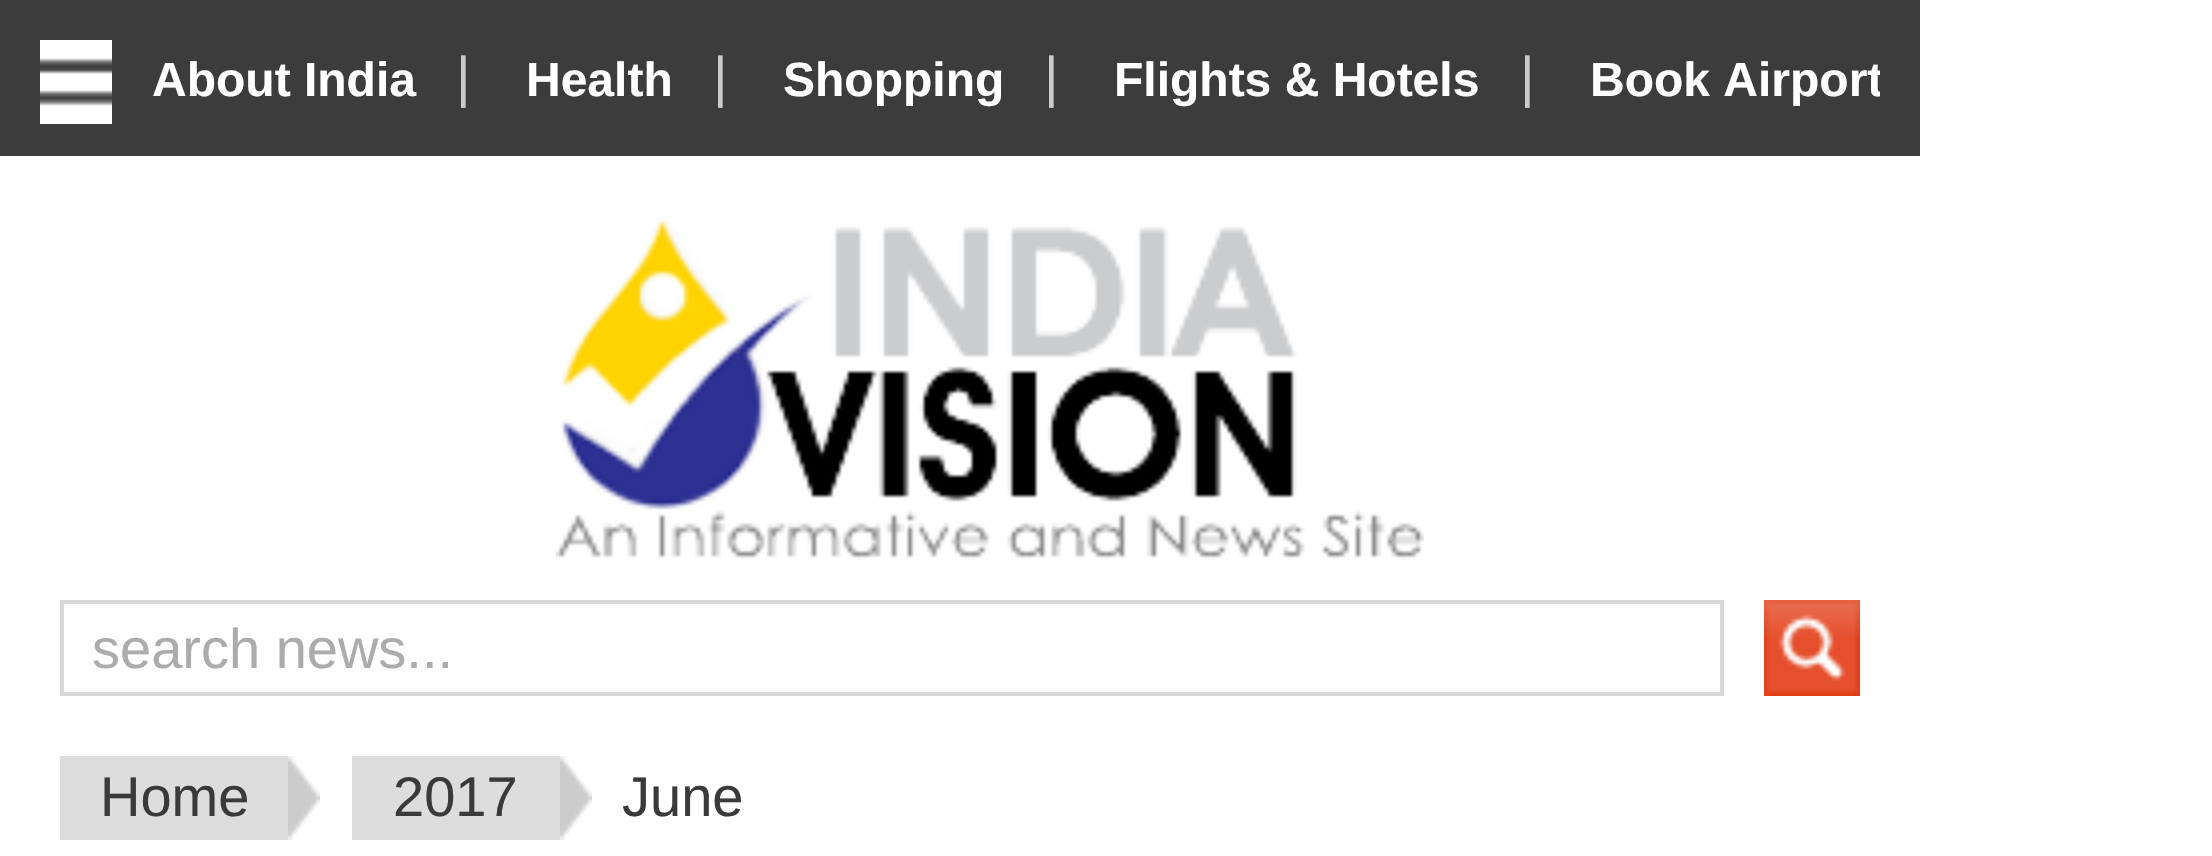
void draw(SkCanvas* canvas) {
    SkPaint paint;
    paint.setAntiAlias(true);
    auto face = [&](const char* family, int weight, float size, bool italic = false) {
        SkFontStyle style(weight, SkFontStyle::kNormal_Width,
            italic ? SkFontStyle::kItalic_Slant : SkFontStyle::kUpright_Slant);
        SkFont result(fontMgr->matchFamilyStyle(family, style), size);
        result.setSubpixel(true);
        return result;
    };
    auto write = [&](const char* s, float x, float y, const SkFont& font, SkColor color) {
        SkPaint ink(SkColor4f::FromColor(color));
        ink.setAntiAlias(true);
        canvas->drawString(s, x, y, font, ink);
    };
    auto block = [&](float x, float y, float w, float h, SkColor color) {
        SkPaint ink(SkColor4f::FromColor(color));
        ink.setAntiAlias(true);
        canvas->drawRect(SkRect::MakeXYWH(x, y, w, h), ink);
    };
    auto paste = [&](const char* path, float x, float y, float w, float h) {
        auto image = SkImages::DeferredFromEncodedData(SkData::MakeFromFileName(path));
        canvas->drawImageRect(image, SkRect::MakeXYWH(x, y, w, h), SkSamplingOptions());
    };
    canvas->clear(SK_ColorWHITE);
    block(0, 0, 1920, 156, SkColorSetRGB(60, 60, 60));
    paste("pic1.png", 40, 40, 72, 84);
    auto kFont1 = face("Liberation Sans", 700, 48);
    write("About India", 152, 96, kFont1, SK_ColorWHITE);
    auto kFont2 = face("Liberation Sans", 400, 56);
    write("|", 456, 96, kFont2, SkColorSetRGB(203, 203, 203));
    write("Health", 526, 96, kFont1, SK_ColorWHITE);
    write("|", 713, 96, kFont2, SkColorSetRGB(203, 203, 203));
    write("Shopping", 783, 96, kFont1, SK_ColorWHITE);
    write("|", 1044, 96, kFont2, SkColorSetRGB(203, 203, 203));
    write("Flights & Hotels", 1114, 96, kFont1, SK_ColorWHITE);
    write("|", 1520, 96, kFont2, SkColorSetRGB(203, 203, 203));
    canvas->save();
    canvas->clipRect(SkRect::MakeXYWH(112, 40, 1768, 116));
    write("Book Airport", 1590, 96, kFont1, SK_ColorWHITE);
    canvas->restore();
    paste("pic2.png", 556, 216, 868, 344);
    paint.setStyle(SkPaint::kStroke_Style);
    paint.setStrokeWidth(4);
    paint.setColor(SkColorSetRGB(217, 217, 217));
    canvas->drawRect(SkRect::MakeXYWH(62, 602, 1660, 92), paint);
    write("search news...", 92, 668, kFont2, SkColorSetRGB(172, 172, 172));
    paste("pic3.png", 1764, 600, 96, 96);
    block(60, 756, 228, 84, SkColorSetRGB(221, 221, 221));
    write("Home", 100, 816, kFont2, SkColorSetRGB(58, 58, 58));
    paste("pic4.png", 288, 756, 32, 84);
    block(352, 756, 208, 84, SkColorSetRGB(221, 221, 221));
    write("2017", 393, 816, kFont2, SkColorSetRGB(58, 58, 58));
    paste("pic4.png", 560, 756, 32, 84);
    write("June", 622, 816, kFont2, SkColorSetRGB(58, 58, 58));
}
